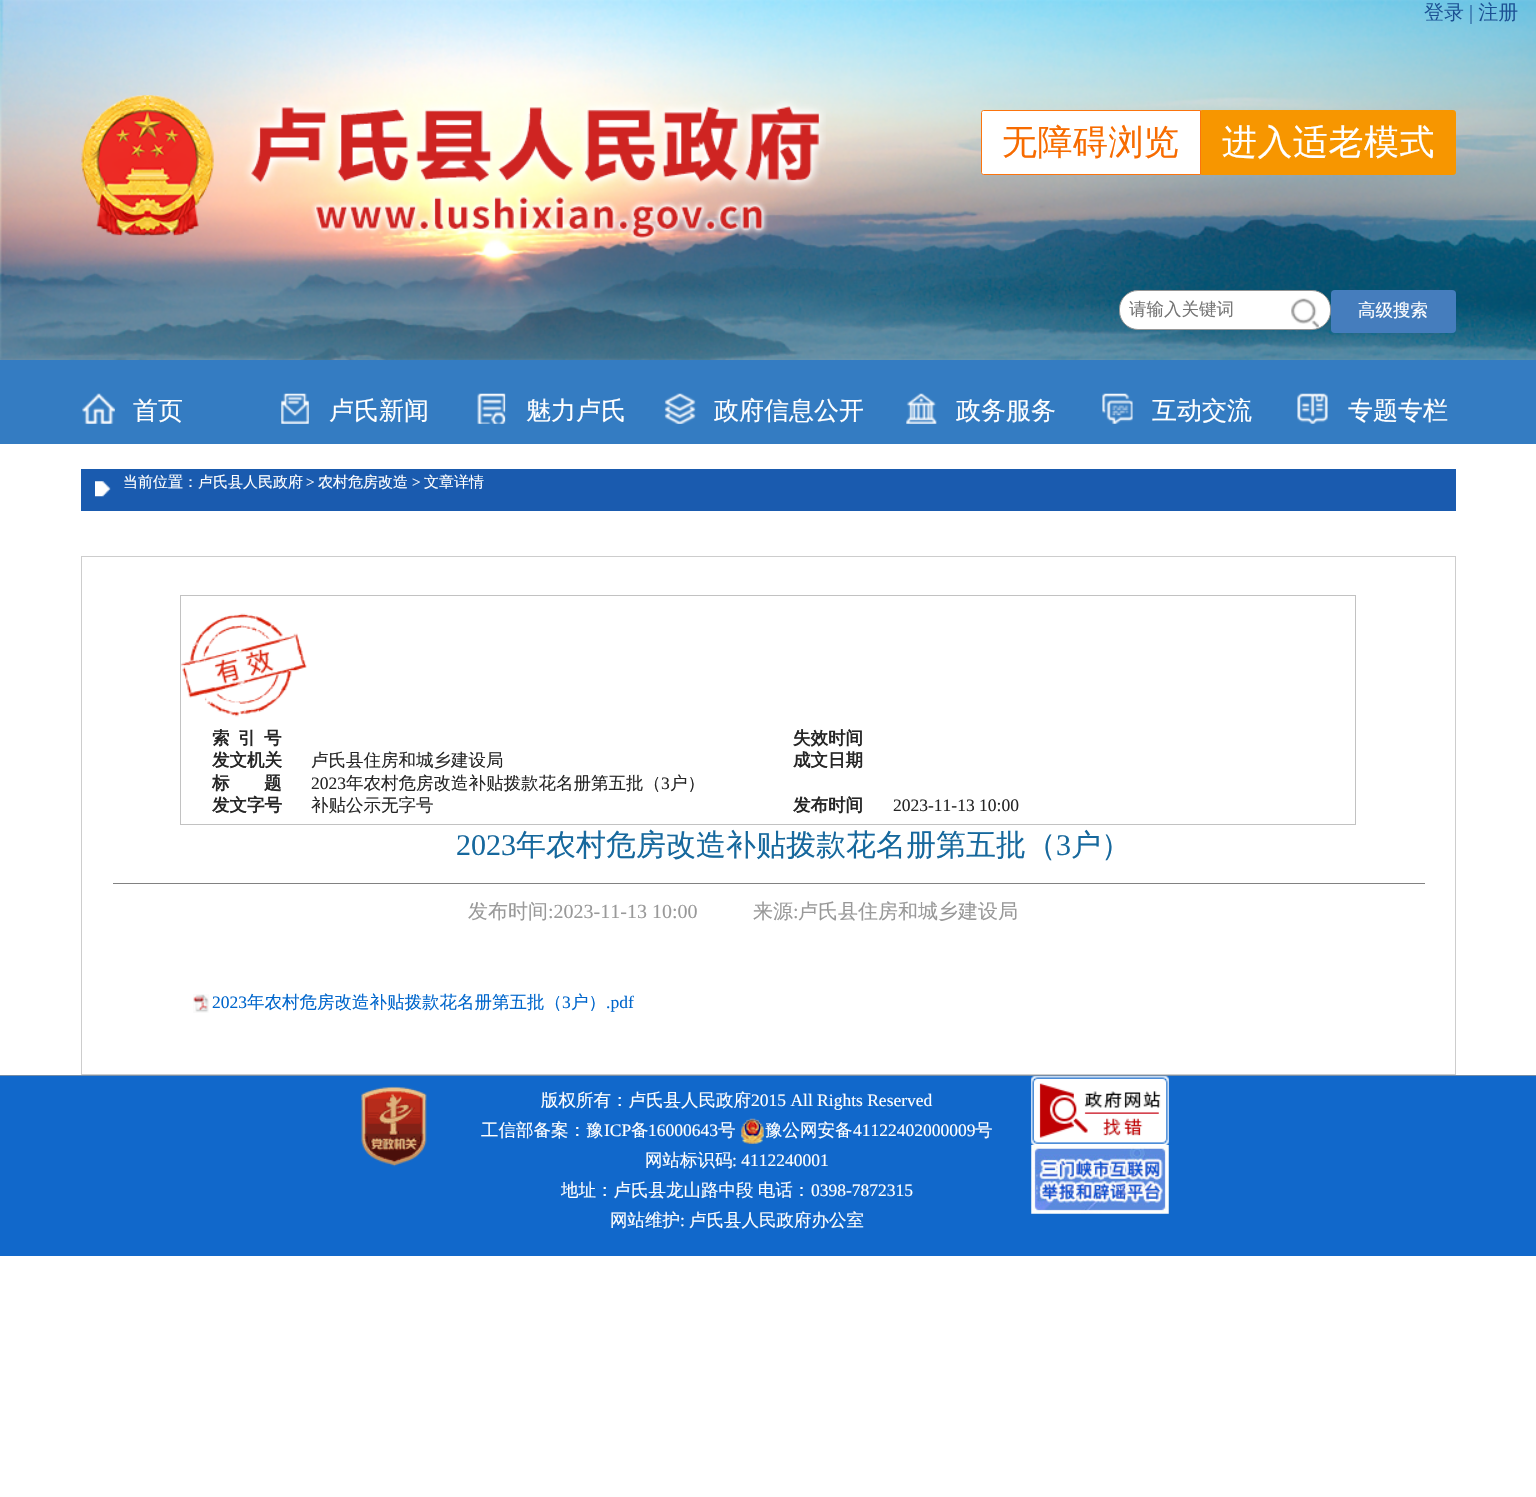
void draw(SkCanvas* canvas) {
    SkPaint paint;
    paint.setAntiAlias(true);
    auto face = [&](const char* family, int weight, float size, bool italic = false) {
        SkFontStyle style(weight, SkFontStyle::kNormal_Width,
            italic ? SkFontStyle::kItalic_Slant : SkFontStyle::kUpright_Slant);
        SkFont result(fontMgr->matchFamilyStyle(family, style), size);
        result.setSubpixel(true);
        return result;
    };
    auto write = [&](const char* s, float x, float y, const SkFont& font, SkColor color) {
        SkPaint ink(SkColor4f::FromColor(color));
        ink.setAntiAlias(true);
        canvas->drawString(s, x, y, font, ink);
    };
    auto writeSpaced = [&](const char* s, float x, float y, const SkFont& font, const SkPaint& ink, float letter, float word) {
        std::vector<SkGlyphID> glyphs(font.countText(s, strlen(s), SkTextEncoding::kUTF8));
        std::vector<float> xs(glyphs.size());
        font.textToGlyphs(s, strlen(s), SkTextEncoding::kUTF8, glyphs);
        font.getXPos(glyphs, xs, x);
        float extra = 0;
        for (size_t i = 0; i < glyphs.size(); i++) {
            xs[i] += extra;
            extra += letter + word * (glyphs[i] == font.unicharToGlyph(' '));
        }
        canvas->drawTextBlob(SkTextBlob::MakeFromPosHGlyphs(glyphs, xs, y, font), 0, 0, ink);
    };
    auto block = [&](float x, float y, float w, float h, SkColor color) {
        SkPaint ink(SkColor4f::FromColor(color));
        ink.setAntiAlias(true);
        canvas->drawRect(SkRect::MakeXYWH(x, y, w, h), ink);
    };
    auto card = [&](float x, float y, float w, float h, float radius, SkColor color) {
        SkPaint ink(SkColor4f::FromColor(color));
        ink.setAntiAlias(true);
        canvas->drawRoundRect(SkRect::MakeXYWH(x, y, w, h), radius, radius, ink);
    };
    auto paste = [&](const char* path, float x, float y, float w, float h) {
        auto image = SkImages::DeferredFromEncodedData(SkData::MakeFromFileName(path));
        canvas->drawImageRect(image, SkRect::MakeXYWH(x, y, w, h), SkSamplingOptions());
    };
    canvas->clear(SK_ColorWHITE);
    paste("pic2.png", 0, 0, 1536, 360);
    paste("pic1.png", 1424, 2, 94, 22);
    paste("pic3.png", 81, 95, 745, 148);
    paint.setColor(SK_ColorWHITE);
    canvas->drawPath(SkPathBuilder().moveTo(983.5f, 110.5f).lineTo(1200.5f, 110.5f).lineTo(1200.5f, 174.5f).lineTo(983.5f, 174.5f).cubicTo(982.5f, 174.5f, 981.5f, 173.5f, 981.5f, 172.5f).lineTo(981.5f, 112.5f).cubicTo(981.5f, 111.5f, 982.5f, 110.5f, 983.5f, 110.5f).close().detach(), paint);
    paint.setStyle(SkPaint::kStroke_Style);
    paint.setStrokeWidth(1);
    paint.setColor(SkColorSetRGB(252, 116, 13));
    canvas->drawPath(SkPathBuilder().moveTo(983.5f, 110.5f).lineTo(1200.5f, 110.5f).lineTo(1200.5f, 174.5f).lineTo(983.5f, 174.5f).cubicTo(982.5f, 174.5f, 981.5f, 173.5f, 981.5f, 172.5f).lineTo(981.5f, 112.5f).cubicTo(981.5f, 111.5f, 982.5f, 110.5f, 983.5f, 110.5f).close().detach(), paint);
    auto kFont1 = face("WenQuanYi Zen Hei", 500, 35);
    paint.setStyle(SkPaint::kFill_Style);
    paint.setColor(SkColorSetRGB(247, 107, 0));
    writeSpaced("无障碍浏览", 1002, 154, kFont1, paint, 0.5f, 0);
    paint.setColor(SkColorSetRGB(247, 150, 0));
    canvas->drawPath(SkPathBuilder().moveTo(1201.5f, 110.5f).lineTo(1453.5f, 110.5f).cubicTo(1454.5f, 110.5f, 1455.5f, 111.5f, 1455.5f, 112.5f).lineTo(1455.5f, 172.5f).cubicTo(1455.5f, 173.5f, 1454.5f, 174.5f, 1453.5f, 174.5f).lineTo(1201.5f, 174.5f).close().detach(), paint);
    paint.setStyle(SkPaint::kStroke_Style);
    canvas->drawPath(SkPathBuilder().moveTo(1201.5f, 110.5f).lineTo(1453.5f, 110.5f).cubicTo(1454.5f, 110.5f, 1455.5f, 111.5f, 1455.5f, 112.5f).lineTo(1455.5f, 172.5f).cubicTo(1455.5f, 173.5f, 1454.5f, 174.5f, 1453.5f, 174.5f).lineTo(1201.5f, 174.5f).close().detach(), paint);
    paint.setStyle(SkPaint::kFill_Style);
    paint.setColor(SK_ColorWHITE);
    writeSpaced("进入适老模式", 1222, 154, kFont1, paint, 0.5f, 0);
    canvas->drawRoundRect(SkRect::MakeXYWH(1119.5f, 290.5f, 211, 39), 18.5f, 18.5f, paint);
    paint.setStyle(SkPaint::kStroke_Style);
    paint.setColor(SkColorSetRGB(149, 149, 149));
    canvas->drawRoundRect(SkRect::MakeXYWH(1119.5f, 290.5f, 211, 39), 18.5f, 18.5f, paint);
    auto kFont2 = face("WenQuanYi Zen Hei", 500, 17.5f);
    write("请输入关键词", 1129, 315, kFont2, SkColorSetRGB(117, 117, 117));
    paste("pic4.png", 1291, 298, 28, 30);
    card(1331, 290, 125, 43, 4, SkColorSetRGB(69, 125, 189));
    write("高级搜索", 1358, 316, kFont2, SK_ColorWHITE);
    block(0, 360, 1536, 84, SkColorSetRGB(52, 124, 194));
    paste("pic5.png", 82, 393, 33, 31);
    auto kFont3 = face("WenQuanYi Zen Hei", 500, 25);
    write("首页", 133, 419, kFont3, SK_ColorWHITE);
    paste("pic6.png", 281, 393, 28, 31);
    write("卢氏新闻", 329, 419, kFont3, SK_ColorWHITE);
    paste("pic7.png", 477, 393, 29, 31);
    write("魅力卢氏", 526, 419, kFont3, SK_ColorWHITE);
    paste("pic8.png", 664, 393, 32, 31);
    write("政府信息公开", 714, 419, kFont3, SK_ColorWHITE);
    paste("pic9.png", 906, 393, 31, 31);
    write("政务服务", 956, 419, kFont3, SK_ColorWHITE);
    paste("pic10.png", 1102, 393, 31, 31);
    write("互动交流", 1152, 419, kFont3, SK_ColorWHITE);
    paste("pic11.png", 1297, 393, 31, 31);
    write("专题专栏", 1348, 419, kFont3, SK_ColorWHITE);
    block(81, 469, 1375, 42, SkColorSetRGB(26, 91, 175));
    paste("pic12.png", 95, 481, 16, 16);
    auto kFont4 = face("WenQuanYi Zen Hei", 500, 15);
    write("当前位置：卢氏县人民政府", 123, 487, kFont4, SK_ColorWHITE);
    auto kFont5 = face("Liberation Serif", 400, 15);
    write(">", 306, 487, kFont5, SK_ColorWHITE);
    write("农村危房改造", 318, 487, kFont4, SK_ColorWHITE);
    write(">", 412, 487, kFont5, SK_ColorWHITE);
    write("文章详情", 424, 487, kFont4, SK_ColorWHITE);
    paint.setColor(SkColorSetRGB(205, 205, 205));
    canvas->drawRect(SkRect::MakeXYWH(81.5f, 556.5f, 1374, 518), paint);
    paint.setColor(SkColorSetRGB(194, 194, 194));
    canvas->drawRect(SkRect::MakeXYWH(180.5f, 595.5f, 1175, 229), paint);
    paste("pic13.png", 181, 613, 126, 104);
    auto kFont6 = face("WenQuanYi Zen Hei", 700, 17.5f);
    write("索", 212, 744, kFont6, SkColorSetRGB(38, 38, 38));
    write("引", 238, 744, kFont6, SkColorSetRGB(38, 38, 38));
    write("号", 264, 744, kFont6, SkColorSetRGB(38, 38, 38));
    write("失效时间", 793, 744, kFont6, SkColorSetRGB(38, 38, 38));
    write("发文机关", 212, 766, kFont6, SkColorSetRGB(38, 38, 38));
    write("卢氏县住房和城乡建设局", 311, 766, kFont2, SkColorSetRGB(38, 38, 38));
    write("成文日期", 793, 766, kFont6, SkColorSetRGB(38, 38, 38));
    write("标", 212, 789, kFont6, SkColorSetRGB(38, 38, 38));
    write("题", 264, 789, kFont6, SkColorSetRGB(38, 38, 38));
    auto kFont7 = face("Liberation Serif", 400, 17.5f);
    write("2023", 311, 789, kFont7, SkColorSetRGB(38, 38, 38));
    write("年农村危房改造补贴拨款花名册第五批（", 346, 789, kFont2, SkColorSetRGB(38, 38, 38));
    write("3", 661, 789, kFont7, SkColorSetRGB(38, 38, 38));
    write("户）", 670, 789, kFont2, SkColorSetRGB(38, 38, 38));
    write("发文字号", 212, 811, kFont6, SkColorSetRGB(38, 38, 38));
    write("补贴公示无字号", 311, 811, kFont2, SkColorSetRGB(38, 38, 38));
    write("发布时间", 793, 811, kFont6, SkColorSetRGB(38, 38, 38));
    write("2023-11-13 10:00", 893, 811, kFont7, SkColorSetRGB(38, 38, 38));
    block(113, 883, 1312, 1, SkColorSetRGB(129, 129, 129));
    auto kFont8 = face("Liberation Serif", 400, 30);
    write("2023", 456, 855, kFont8, SkColorSetRGB(22, 104, 157));
    auto kFont9 = face("WenQuanYi Zen Hei", 500, 30);
    write("年农村危房改造补贴拨款花名册第五批（", 516, 855, kFont9, SkColorSetRGB(22, 104, 157));
    write("3", 1056, 855, kFont8, SkColorSetRGB(22, 104, 157));
    write("户）", 1071, 855, kFont9, SkColorSetRGB(22, 104, 157));
    auto kFont10 = face("WenQuanYi Zen Hei", 500, 20);
    write("发布时间", 468, 918, kFont10, SkColorSetRGB(153, 153, 153));
    auto kFont11 = face("Liberation Serif", 400, 20);
    write(":2023-11-13 10:00", 548, 918, kFont11, SkColorSetRGB(153, 153, 153));
    write("来源", 753, 918, kFont10, SkColorSetRGB(153, 153, 153));
    write(":", 793, 918, kFont11, SkColorSetRGB(153, 153, 153));
    write("卢氏县住房和城乡建设局", 798, 918, kFont10, SkColorSetRGB(153, 153, 153));
    paste("pic14.png", 193, 994, 16, 19);
    write("2023", 212, 1008, kFont7, SkColorSetRGB(0, 102, 204));
    write("年农村危房改造补贴拨款花名册第五批（", 247, 1008, kFont2, SkColorSetRGB(0, 102, 204));
    write("3", 562, 1008, kFont7, SkColorSetRGB(0, 102, 204));
    write("户）", 571, 1008, kFont2, SkColorSetRGB(0, 102, 204));
    write(".pdf", 606, 1008, kFont7, SkColorSetRGB(0, 102, 204));
    block(0, 1076, 1536, 180, SkColorSetRGB(17, 104, 203));
    block(0, 1075, 1536, 1, SkColorSetRGB(117, 141, 167));
    paste("pic15.png", 361, 1086, 66, 81);
    write("版权所有：卢氏县人民政府", 541, 1106, kFont2, SK_ColorWHITE);
    write("2015 All Rights Reserved", 751, 1106, kFont7, SK_ColorWHITE);
    write("工信部备案：豫", 481, 1136, kFont2, SK_ColorWHITE);
    write("ICP", 604, 1136, kFont7, SK_ColorWHITE);
    write("备", 631, 1136, kFont2, SK_ColorWHITE);
    write("16000643", 648, 1136, kFont7, SK_ColorWHITE);
    write("号", 718, 1136, kFont2, SK_ColorWHITE);
    paste("pic16.png", 741, 1118, 23, 26);
    write("豫公网安备", 765, 1136, kFont2, SK_ColorWHITE);
    write("41122402000009", 853, 1136, kFont7, SK_ColorWHITE);
    write("号", 975, 1136, kFont2, SK_ColorWHITE);
    write("网站标识码", 645, 1166, kFont2, SK_ColorWHITE);
    write(": 4112240001", 732, 1166, kFont7, SK_ColorWHITE);
    paint.setStyle(SkPaint::kFill_Style);
    paint.setColor(SK_ColorWHITE);
    writeSpaced("地址：卢氏县龙山路中段 电话：", 561, 1196, kFont2, paint, 0, -1);
    write("0398-7872315", 811, 1196, kFont7, SK_ColorWHITE);
    write("网站维护", 610, 1226, kFont2, SK_ColorWHITE);
    write(":", 680, 1226, kFont7, SK_ColorWHITE);
    write("卢氏县人民政府办公室", 689, 1226, kFont2, SK_ColorWHITE);
    paste("pic17.png", 1031, 1076, 138, 69);
    paste("pic18.png", 1031, 1145, 138, 69);
}
